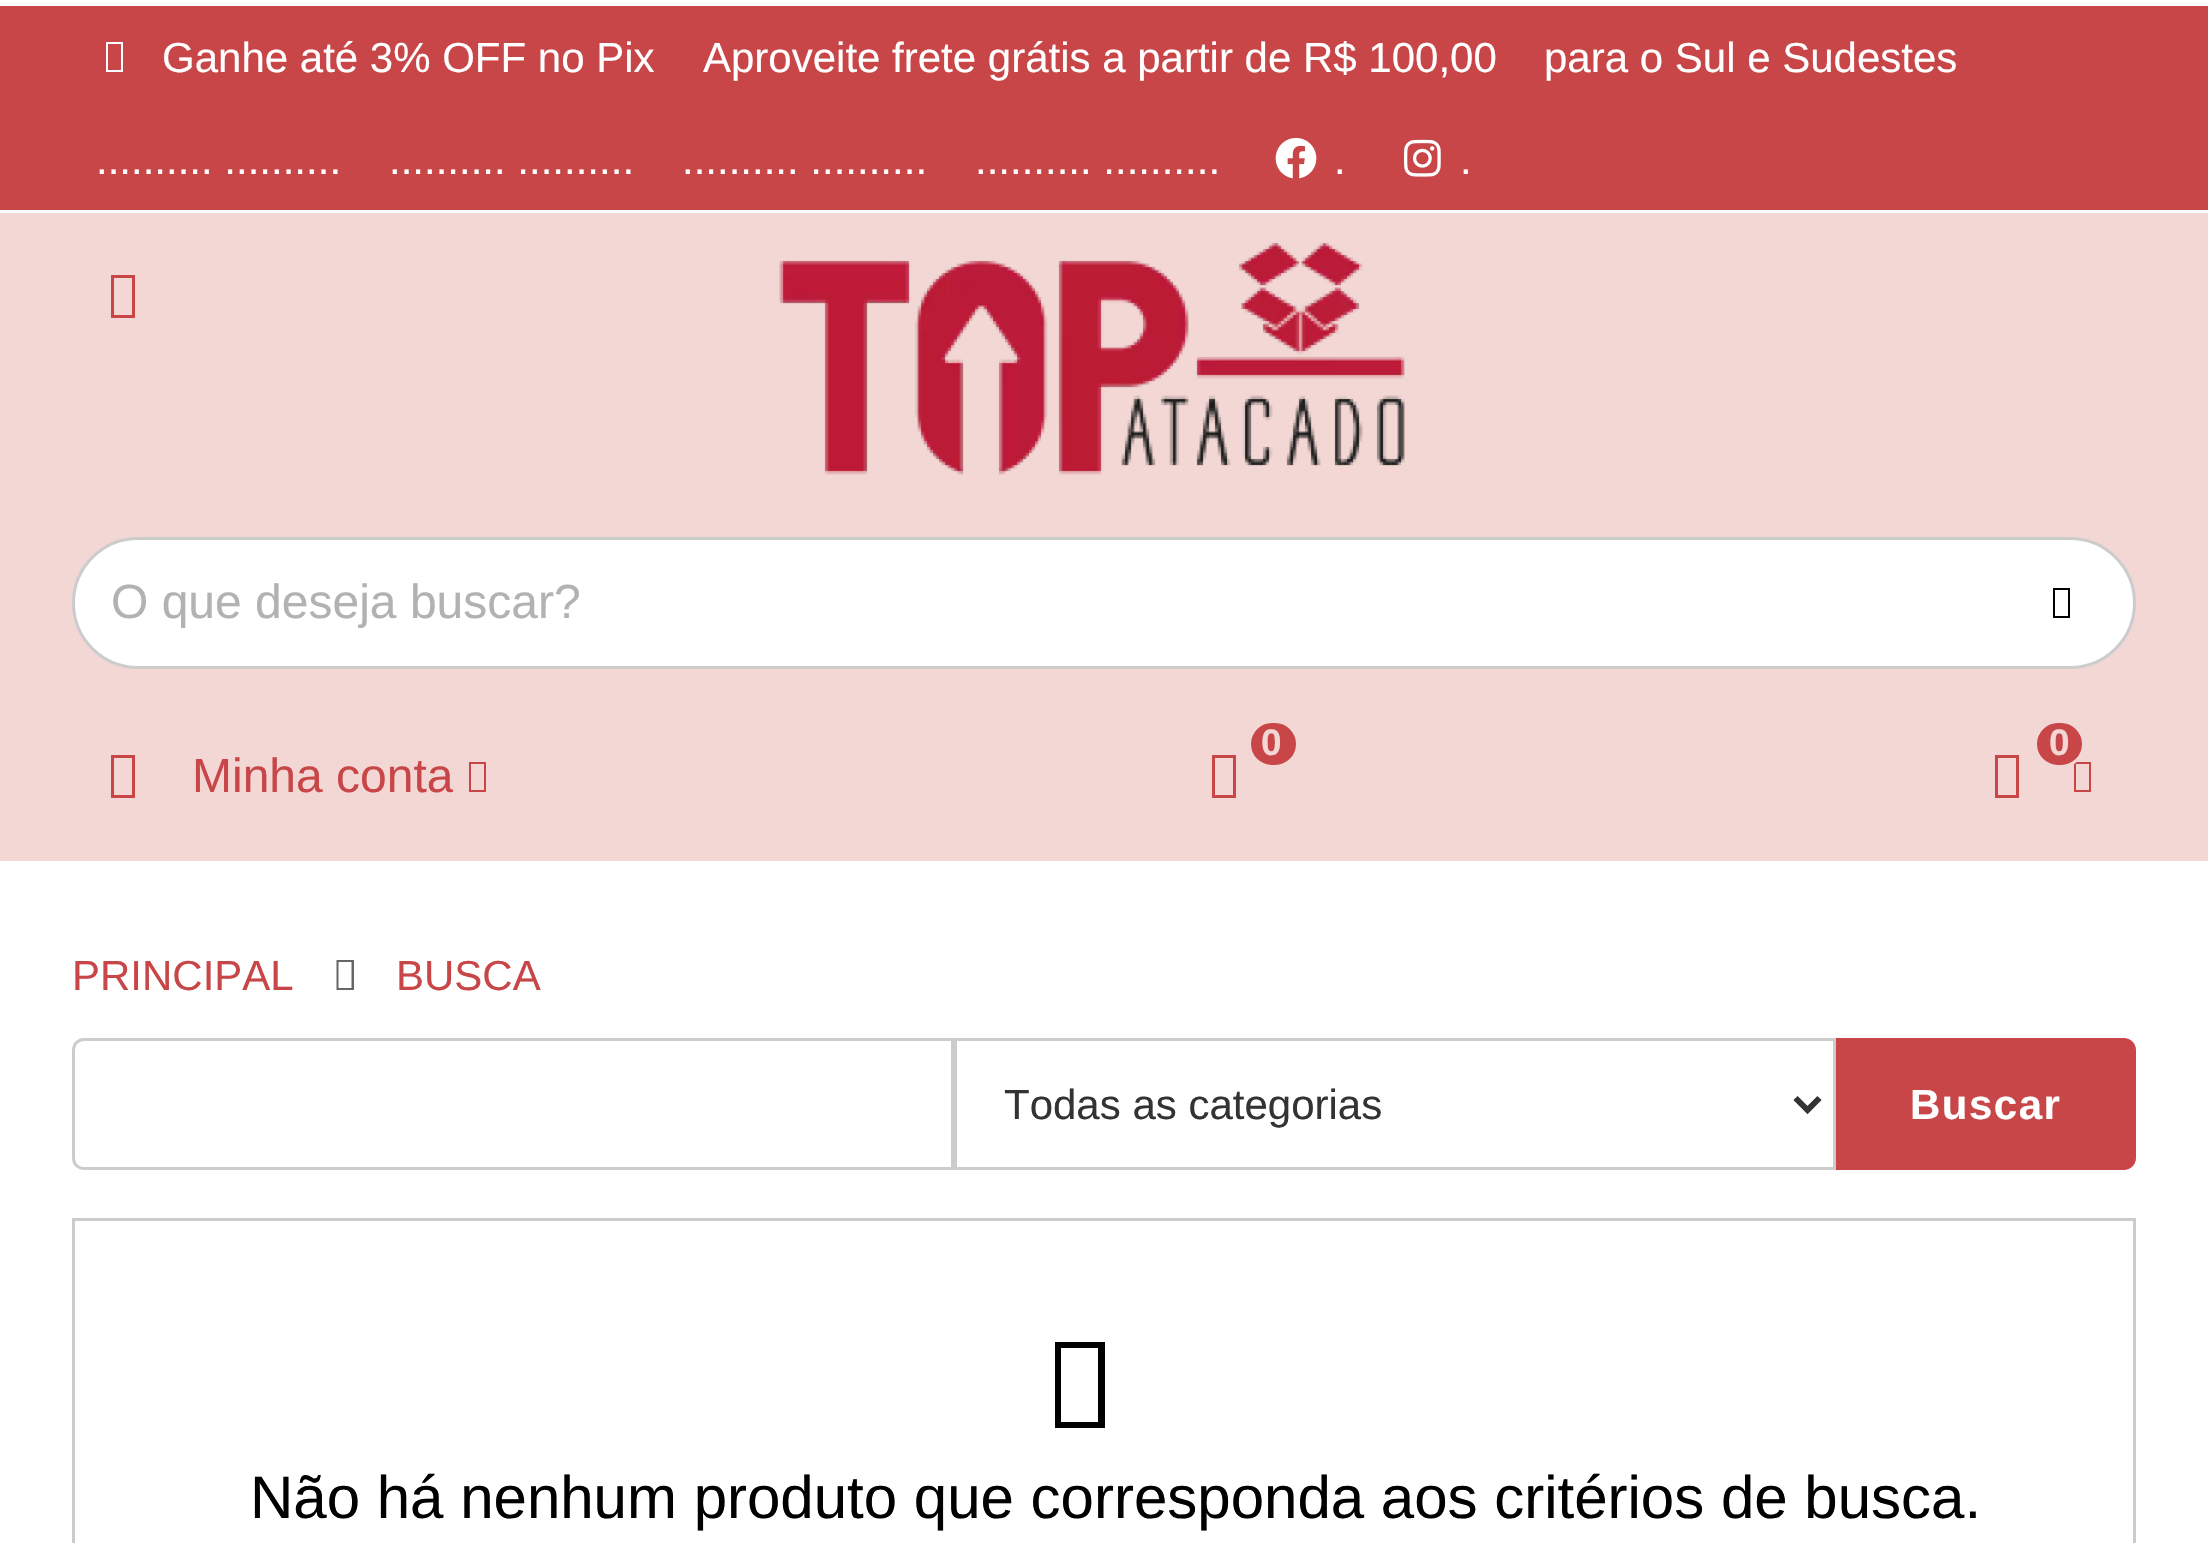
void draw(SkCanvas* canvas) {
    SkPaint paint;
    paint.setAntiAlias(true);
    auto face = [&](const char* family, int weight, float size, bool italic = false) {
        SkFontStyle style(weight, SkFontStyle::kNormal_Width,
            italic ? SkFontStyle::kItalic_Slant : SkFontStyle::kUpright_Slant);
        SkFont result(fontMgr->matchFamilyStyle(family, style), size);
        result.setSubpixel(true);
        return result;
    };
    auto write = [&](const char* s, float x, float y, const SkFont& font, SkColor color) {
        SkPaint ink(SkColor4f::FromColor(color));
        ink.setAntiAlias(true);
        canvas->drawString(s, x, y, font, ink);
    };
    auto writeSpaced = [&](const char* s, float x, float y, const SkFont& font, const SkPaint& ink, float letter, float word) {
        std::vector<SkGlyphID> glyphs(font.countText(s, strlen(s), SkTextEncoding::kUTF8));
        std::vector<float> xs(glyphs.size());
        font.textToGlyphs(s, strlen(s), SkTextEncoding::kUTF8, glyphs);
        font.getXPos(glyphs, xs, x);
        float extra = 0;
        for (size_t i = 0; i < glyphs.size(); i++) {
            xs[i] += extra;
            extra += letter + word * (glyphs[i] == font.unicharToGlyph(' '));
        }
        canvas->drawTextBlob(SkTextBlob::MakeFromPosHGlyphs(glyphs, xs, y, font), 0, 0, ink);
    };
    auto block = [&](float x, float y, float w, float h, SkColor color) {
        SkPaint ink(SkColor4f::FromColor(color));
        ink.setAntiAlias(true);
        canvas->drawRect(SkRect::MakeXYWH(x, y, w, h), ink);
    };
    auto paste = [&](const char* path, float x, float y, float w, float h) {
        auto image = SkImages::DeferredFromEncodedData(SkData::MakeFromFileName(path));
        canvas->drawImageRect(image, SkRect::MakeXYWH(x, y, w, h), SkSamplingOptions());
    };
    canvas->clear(SK_ColorWHITE);
    block(0, 6, 2208, 204, SkColorSetRGB(200, 70, 72));
    paint.setColor(SK_ColorWHITE);
    canvas->drawPath(SkPathBuilder().moveTo(106, 72).lineTo(106, 42).lineTo(123, 42).lineTo(123, 72).close().moveTo(108, 70).lineTo(121, 70).lineTo(121, 44).lineTo(108, 44).close().detach(), paint);
    auto kFont1 = face("Liberation Sans", 400, 42);
    write("Ganhe até 3% OFF no Pix", 162, 72, kFont1, SK_ColorWHITE);
    write("Aproveite frete grátis a partir de R$ 100,00", 703, 72, kFont1, SK_ColorWHITE);
    write("para o Sul e Sudestes", 1544, 72, kFont1, SK_ColorWHITE);
    write(".......... ..........", 96, 174, kFont1, SK_ColorWHITE);
    write(".......... ..........", 389, 174, kFont1, SK_ColorWHITE);
    write(".......... ..........", 682, 174, kFont1, SK_ColorWHITE);
    write(".......... ..........", 975, 174, kFont1, SK_ColorWHITE);
    paste("pic1.png", 1275, 137, 42, 42);
    write(".", 1334, 174, kFont1, SK_ColorWHITE);
    paste("pic2.png", 1404, 139, 37, 38);
    write(".", 1460, 174, kFont1, SK_ColorWHITE);
    block(0, 213, 2208, 648, SkColorSetRGB(242, 215, 213));
    paint.setColor(SkColorSetRGB(200, 70, 72));
    canvas->drawPath(SkPathBuilder().moveTo(111, 318).lineTo(111, 275).lineTo(135, 275).lineTo(135, 318).close().moveTo(114, 315).lineTo(132, 315).lineTo(132, 278).lineTo(114, 278).close().detach(), paint);
    paste("pic3.png", 779, 242, 626, 233);
    paint.setColor(SK_ColorWHITE);
    canvas->drawRoundRect(SkRect::MakeXYWH(73.5f, 538.5f, 2061, 129), 64.5f, 64.5f, paint);
    paint.setStyle(SkPaint::kStroke_Style);
    paint.setStrokeWidth(3);
    paint.setColor(SkColorSetRGB(204, 204, 204));
    canvas->drawRoundRect(SkRect::MakeXYWH(73.5f, 538.5f, 2061, 129), 64.5f, 64.5f, paint);
    auto kFont2 = face("Liberation Sans", 400, 48);
    write("O que deseja buscar?", 111, 618, kFont2, SkColorSetRGB(178, 178, 178));
    paint.setStyle(SkPaint::kFill_Style);
    paint.setColor(SK_ColorBLACK);
    canvas->drawPath(SkPathBuilder().moveTo(2053, 618).lineTo(2053, 588).lineTo(2070, 588).lineTo(2070, 618).close().moveTo(2055, 616).lineTo(2068, 616).lineTo(2068, 590).lineTo(2055, 590).close().detach(), paint);
    paint.setColor(SkColorSetRGB(200, 70, 72));
    canvas->drawRoundRect(SkRect::MakeXYWH(1249.5f, 721.5f, 48, 45), 22.5f, 22.5f, paint);
    paint.setStyle(SkPaint::kStroke_Style);
    paint.setColor(SkColorSetRGB(242, 215, 213));
    canvas->drawRoundRect(SkRect::MakeXYWH(1249.5f, 721.5f, 48, 45), 22.5f, 22.5f, paint);
    auto kFont3 = face("Liberation Sans", 700, 37);
    write("0", 1261, 755, kFont3, SkColorSetRGB(242, 215, 213));
    paint.setStyle(SkPaint::kFill_Style);
    paint.setColor(SkColorSetRGB(200, 70, 72));
    canvas->drawPath(SkPathBuilder().moveTo(1212, 798).lineTo(1212, 755).lineTo(1236, 755).lineTo(1236, 798).close().moveTo(1215, 795).lineTo(1233, 795).lineTo(1233, 758).lineTo(1215, 758).close().detach(), paint);
    canvas->drawPath(SkPathBuilder().moveTo(2074, 792).lineTo(2074, 762).lineTo(2091, 762).lineTo(2091, 792).close().moveTo(2076, 790).lineTo(2089, 790).lineTo(2089, 764).lineTo(2076, 764).close().detach(), paint);
    canvas->drawRoundRect(SkRect::MakeXYWH(2035.5f, 721.5f, 48, 45), 22.5f, 22.5f, paint);
    paint.setStyle(SkPaint::kStroke_Style);
    paint.setColor(SkColorSetRGB(242, 215, 213));
    canvas->drawRoundRect(SkRect::MakeXYWH(2035.5f, 721.5f, 48, 45), 22.5f, 22.5f, paint);
    write("0", 2049, 755, kFont3, SkColorSetRGB(242, 215, 213));
    paint.setStyle(SkPaint::kFill_Style);
    paint.setColor(SkColorSetRGB(200, 70, 72));
    canvas->drawPath(SkPathBuilder().moveTo(1995, 798).lineTo(1995, 755).lineTo(2019, 755).lineTo(2019, 798).close().moveTo(1998, 795).lineTo(2016, 795).lineTo(2016, 758).lineTo(1998, 758).close().detach(), paint);
    canvas->drawPath(SkPathBuilder().moveTo(111, 798).lineTo(111, 755).lineTo(135, 755).lineTo(135, 798).close().moveTo(114, 795).lineTo(132, 795).lineTo(132, 758).lineTo(114, 758).close().detach(), paint);
    canvas->save();
    canvas->clipRect(SkRect::MakeXYWH(192, 747, 261, 60));
    write("Minha conta", 192, 792, kFont2, SkColorSetRGB(200, 70, 72));
    canvas->restore();
    canvas->drawPath(SkPathBuilder().moveTo(469, 792).lineTo(469, 762).lineTo(486, 762).lineTo(486, 792).close().moveTo(471, 790).lineTo(484, 790).lineTo(484, 764).lineTo(471, 764).close().detach(), paint);
    write("PRINCIPAL", 72, 990, kFont1, SkColorSetRGB(200, 70, 72));
    paint.setColor(SkColorSetRGB(102, 102, 102));
    canvas->drawPath(SkPathBuilder().moveTo(336.5f, 990).lineTo(336.5f, 960).lineTo(354, 960).lineTo(354, 990).close().moveTo(338.5f, 988).lineTo(351.5f, 988).lineTo(351.5f, 962).lineTo(338.5f, 962).close().detach(), paint);
    write("BUSCA", 396, 990, kFont1, SkColorSetRGB(200, 70, 72));
    paint.setStyle(SkPaint::kStroke_Style);
    paint.setColor(SkColorSetRGB(204, 204, 204));
    canvas->drawPath(SkPathBuilder().moveTo(84, 1039.5f).lineTo(952.5f, 1039.5f).lineTo(952.5f, 1168.5f).lineTo(84, 1168.5f).cubicTo(78, 1168.5f, 73.5f, 1164, 73.5f, 1158).lineTo(73.5f, 1050).cubicTo(73.5f, 1044, 78, 1039.5f, 84, 1039.5f).close().detach(), paint);
    canvas->drawRect(SkRect::MakeXYWH(955.5f, 1039.5f, 879, 129), paint);
    paint.setStrokeWidth(6);
    paint.setColor(SkColorSetRGB(51, 51, 51));
    canvas->drawPath(SkPathBuilder().moveTo(1795.5f, 1098).lineTo(1807.5f, 1110).lineTo(1819.5f, 1098).detach(), paint);
    write("Todas as categorias", 1004, 1119, kFont1, SkColorSetRGB(51, 51, 51));
    paint.setStyle(SkPaint::kFill_Style);
    paint.setColor(SkColorSetRGB(200, 70, 72));
    canvas->drawPath(SkPathBuilder().moveTo(1836, 1038).lineTo(2124, 1038).cubicTo(2130.5f, 1038, 2136, 1043.5f, 2136, 1050).lineTo(2136, 1158).cubicTo(2136, 1164.5f, 2130.5f, 1170, 2124, 1170).lineTo(1836, 1170).close().detach(), paint);
    auto kFont4 = face("Liberation Sans", 700, 42);
    paint.setColor(SK_ColorWHITE);
    writeSpaced("Buscar", 1910, 1119, kFont4, paint, 1.5f, 0);
    paint.setStyle(SkPaint::kStroke_Style);
    paint.setStrokeWidth(3);
    paint.setColor(SkColorSetRGB(204, 204, 204));
    canvas->drawRect(SkRect::MakeXYWH(73.5f, 1219.5f, 2061, 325), paint);
    paint.setStyle(SkPaint::kFill_Style);
    paint.setColor(SK_ColorBLACK);
    canvas->drawPath(SkPathBuilder().moveTo(1055, 1428).lineTo(1055, 1342).lineTo(1105, 1342).lineTo(1105, 1428).close().moveTo(1061, 1422).lineTo(1098, 1422).lineTo(1098, 1348).lineTo(1061, 1348).close().detach(), paint);
    auto kFont5 = face("Liberation Sans", 400, 60);
    write("Não há nenhum produto que corresponda aos critérios de busca.", 250, 1518, kFont5, SK_ColorBLACK);
}
